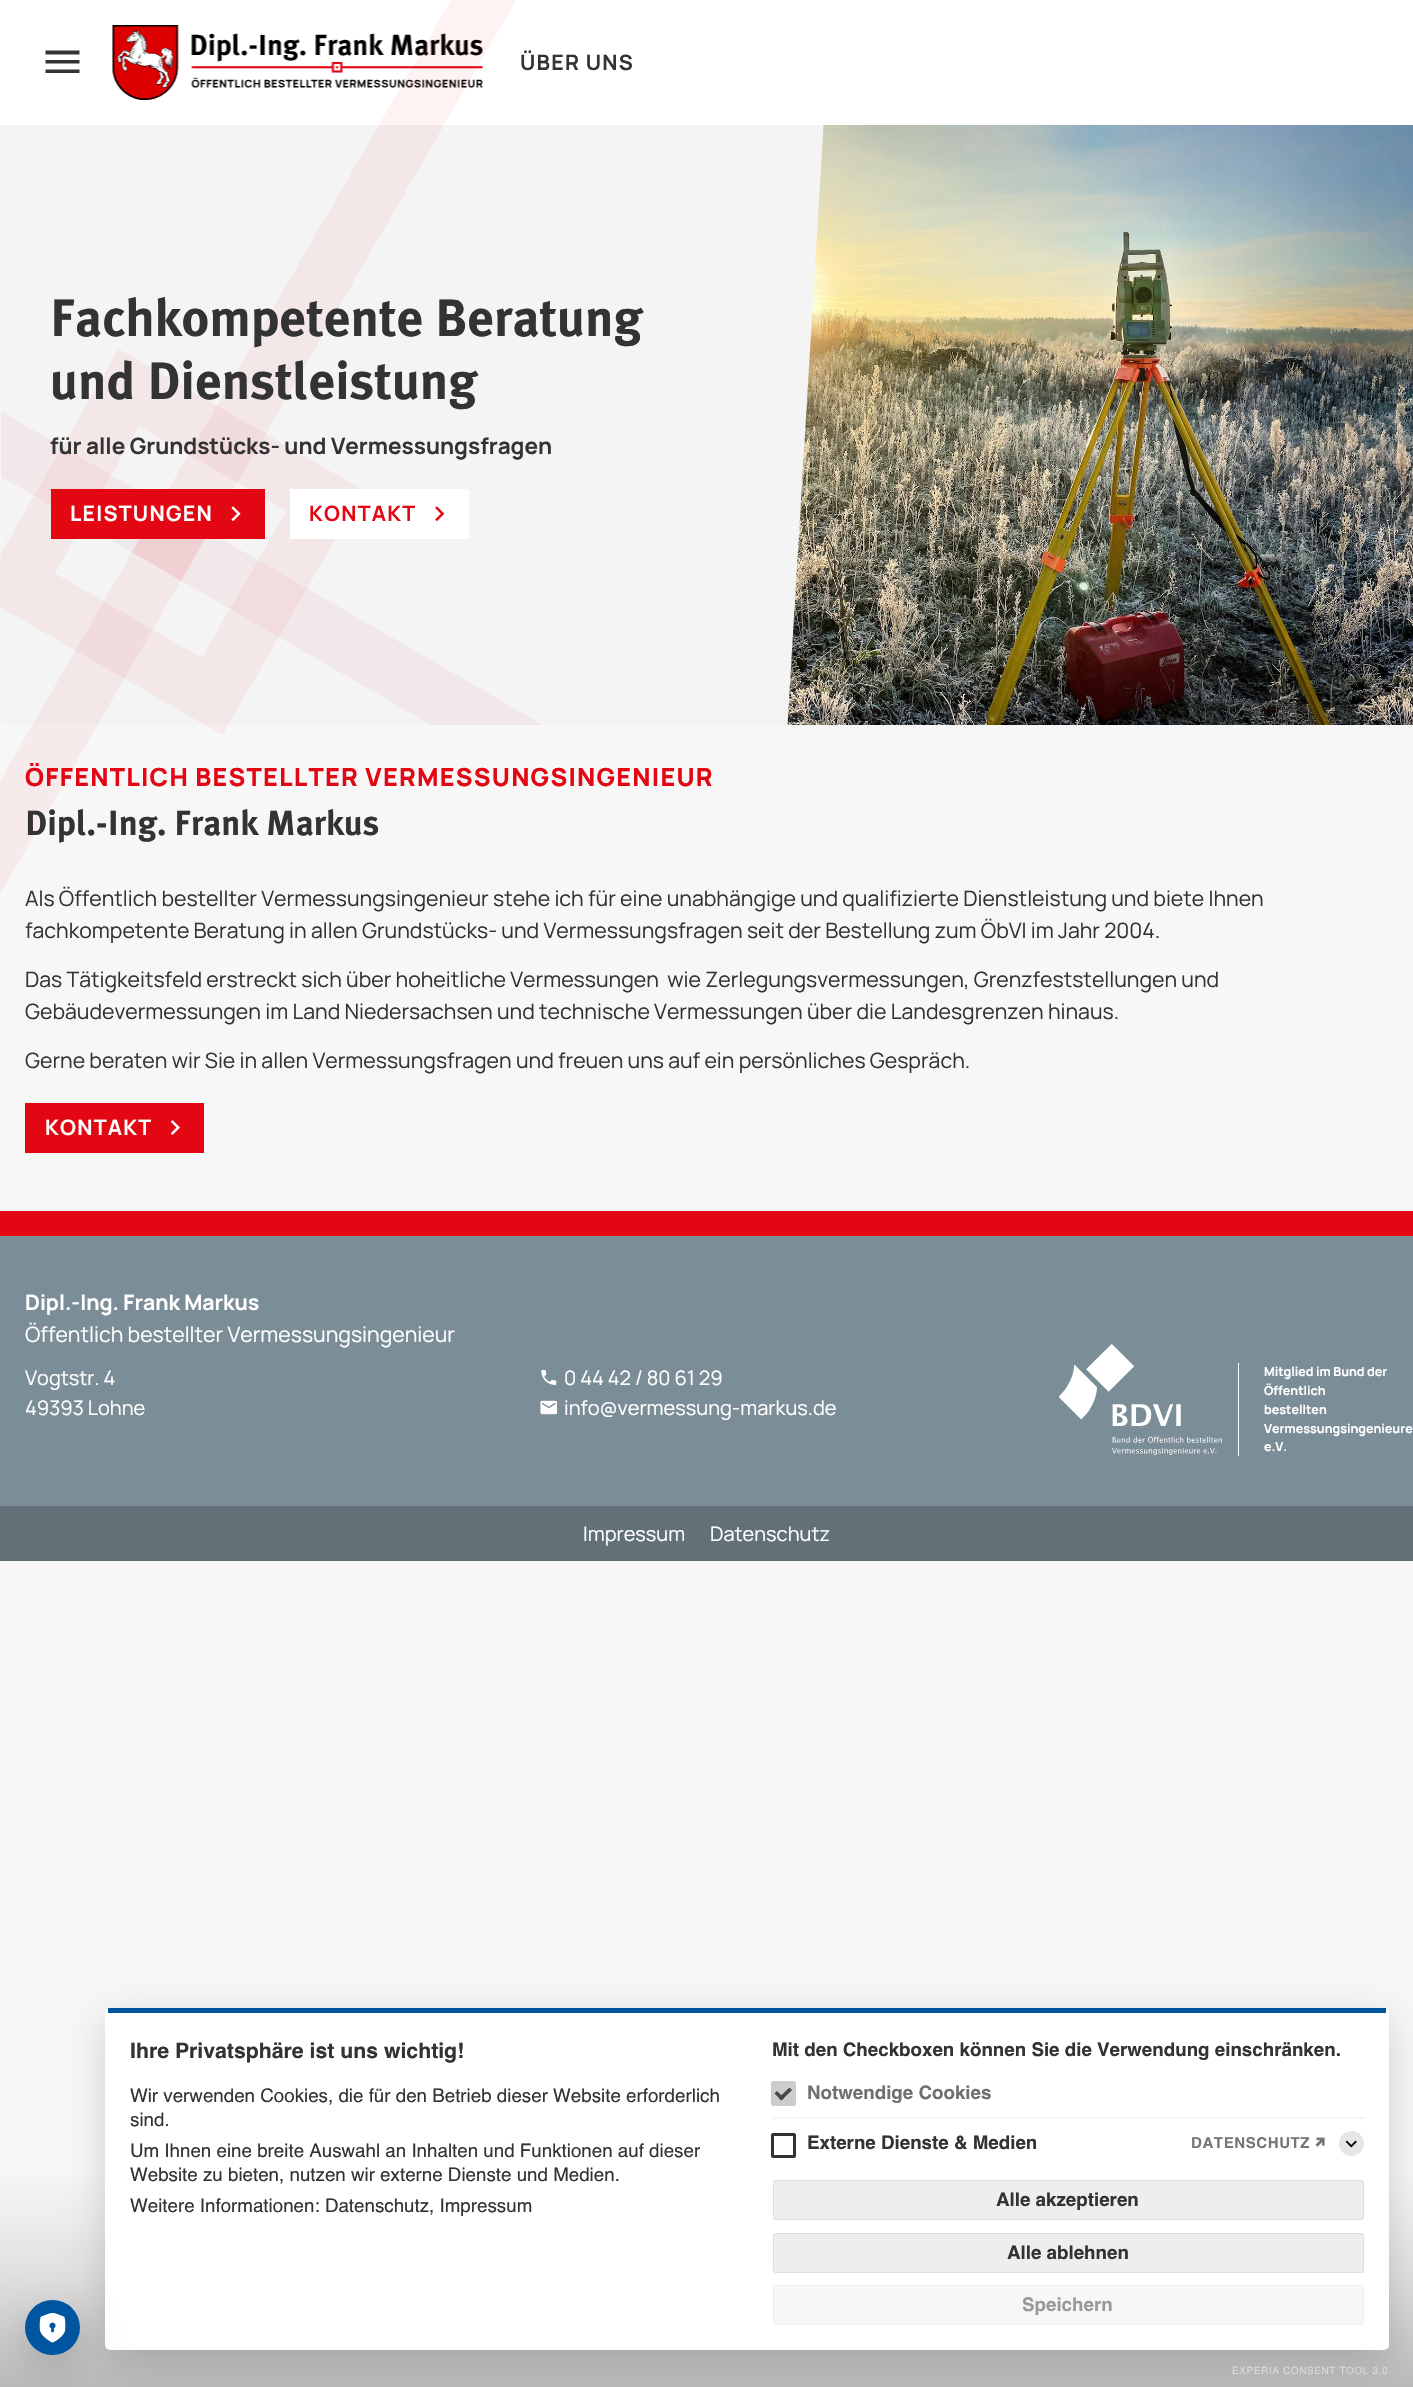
void draw(SkCanvas* canvas) {
    SkPaint paint;
    paint.setAntiAlias(true);
    auto face = [&](const char* family, int weight, float size, bool italic = false) {
        SkFontStyle style(weight, SkFontStyle::kNormal_Width,
            italic ? SkFontStyle::kItalic_Slant : SkFontStyle::kUpright_Slant);
        SkFont result(fontMgr->matchFamilyStyle(family, style), size);
        result.setSubpixel(true);
        return result;
    };
    auto write = [&](const char* s, float x, float y, const SkFont& font, SkColor color) {
        SkPaint ink(SkColor4f::FromColor(color));
        ink.setAntiAlias(true);
        canvas->drawString(s, x, y, font, ink);
    };
    auto writeSpaced = [&](const char* s, float x, float y, const SkFont& font, const SkPaint& ink, float letter, float word) {
        std::vector<SkGlyphID> glyphs(font.countText(s, strlen(s), SkTextEncoding::kUTF8));
        std::vector<float> xs(glyphs.size());
        font.textToGlyphs(s, strlen(s), SkTextEncoding::kUTF8, glyphs);
        font.getXPos(glyphs, xs, x);
        float extra = 0;
        for (size_t i = 0; i < glyphs.size(); i++) {
            xs[i] += extra;
            extra += letter + word * (glyphs[i] == font.unicharToGlyph(' '));
        }
        canvas->drawTextBlob(SkTextBlob::MakeFromPosHGlyphs(glyphs, xs, y, font), 0, 0, ink);
    };
    auto block = [&](float x, float y, float w, float h, SkColor color) {
        SkPaint ink(SkColor4f::FromColor(color));
        ink.setAntiAlias(true);
        canvas->drawRect(SkRect::MakeXYWH(x, y, w, h), ink);
    };
    auto card = [&](float x, float y, float w, float h, float radius, SkColor color) {
        SkPaint ink(SkColor4f::FromColor(color));
        ink.setAntiAlias(true);
        canvas->drawRoundRect(SkRect::MakeXYWH(x, y, w, h), radius, radius, ink);
    };
    auto paste = [&](const char* path, float x, float y, float w, float h) {
        auto image = SkImages::DeferredFromEncodedData(SkData::MakeFromFileName(path));
        canvas->drawImageRect(image, SkRect::MakeXYWH(x, y, w, h), SkSamplingOptions());
    };
    canvas->clear(SkColorSetRGB(247, 247, 247));
    block(0, 0, 1413, 125, SK_ColorWHITE);
    paste("pic1.png", 112, 25, 371, 75);
    paint.setColor(SkColorSetRGB(51, 51, 51));
    canvas->drawPath(SkPathBuilder().moveTo(45.5f, 50.5f).lineTo(79.5f, 50.5f).lineTo(79.5f, 54.5f).lineTo(45.5f, 54.5f).close().moveTo(45.5f, 60).lineTo(79.5f, 60).lineTo(79.5f, 63.5f).lineTo(45.5f, 63.5f).close().moveTo(45.5f, 69.5f).lineTo(79.5f, 69.5f).lineTo(79.5f, 73).lineTo(45.5f, 73).close().detach(), paint);
    auto kFont1 = face("Manrope", 700, 21.25f);
    writeSpaced("ÜBER UNS", 520, 70, kFont1, paint, 1.25f, 0);
    paste("pic4.png", 787, 125, 626, 600);
    canvas->save();
    canvas->clipRect(SkRect::MakeXYWH(0, 125, 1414, 600));
    paint.setColor(SkColorSetRGB(244, 244, 244));
    canvas->drawPath(SkPathBuilder().moveTo(1, -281).lineTo(848, -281).lineTo(763, 1132).lineTo(1, 1132).close().detach(), paint);
    canvas->restore();
    canvas->save();
    canvas->clipRect(SkRect::MakeXYWH(1, 125, 848, 600));
    paint.setColor(SkColorSetRGB(243, 232, 233));
    canvas->drawPath(SkPathBuilder().moveTo(776, 924).lineTo(0, 476).lineTo(0, 411).lineTo(780, 862).close().detach(), paint);
    canvas->restore();
    paint.setColor(SkColorSetARGB(13, 227, 6, 19));
    canvas->drawPath(SkPathBuilder().moveTo(679, -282).lineTo(0, 894).lineTo(0, 781).lineTo(614, -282).close().detach(), paint);
    paint.setStyle(SkPaint::kStroke_Style);
    paint.setStrokeWidth(56.5f);
    paint.setStrokeCap(SkPaint::kRound_Cap);
    canvas->drawPath(SkPathBuilder().moveTo(16, 583.5f).lineTo(129, 387.5f).lineTo(325, 500.5f).lineTo(212, 696.5f).close().detach(), paint);
    paint.setStyle(SkPaint::kFill_Style);
    canvas->drawPath(SkPathBuilder().moveTo(132, 552).lineTo(160, 503).lineTo(209, 532).lineTo(181, 581).close().detach(), paint);
    auto kFont2 = face("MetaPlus", 700, 52.5f);
    write("Fachkompetente Beratung", 50, 336, kFont2, SkColorSetRGB(51, 51, 51));
    write("und Dienstleistung", 50, 399, kFont2, SkColorSetRGB(51, 51, 51));
    auto kFont3 = face("Manrope", 700, 22.5f);
    write("für alle Grundstücks- und Vermessungsfragen", 50, 454, kFont3, SkColorSetRGB(51, 51, 51));
    block(51, 489, 214, 50, SkColorSetRGB(227, 6, 19));
    paint.setColor(SK_ColorWHITE);
    writeSpaced("LEISTUNGEN", 70, 521, kFont1, paint, 1.25f, 0);
    paste("pic2.png", 231, 506, 10, 16);
    block(290, 489, 179, 50, SK_ColorWHITE);
    paint.setColor(SkColorSetRGB(227, 6, 19));
    writeSpaced("KONTAKT", 309, 521, kFont1, paint, 1.25f, 0);
    paste("pic3.png", 435, 506, 10, 16);
    auto kFont4 = face("Manrope", 800, 25);
    writeSpaced("ÖFFENTLICH BESTELLTER VERMESSUNGSINGENIEUR", 25, 786, kFont4, paint, 1.25f, 0);
    auto kFont5 = face("MetaPlus", 700, 35);
    write("Dipl.-Ing. Frank Markus", 25, 835, kFont5, SkColorSetRGB(51, 51, 51));
    auto kFont6 = face("Manrope", 400, 21.25f);
    write("Als Öffentlich bestellter Vermessungsingenieur stehe ich für eine unabhängige und qualifizierte Dienstleistung und biete Ihnen", 25, 906, kFont6, SkColorSetRGB(51, 51, 51));
    write("fachkompetente Beratung in allen Grundstücks- und Vermessungsfragen seit der Bestellung zum ÖbVI im Jahr 2004.", 25, 938, kFont6, SkColorSetRGB(51, 51, 51));
    write("Das Tätigkeitsfeld erstreckt sich über hoheitliche Vermessungen  wie Zerlegungsvermessungen, Grenzfeststellungen und", 25, 987, kFont6, SkColorSetRGB(51, 51, 51));
    write("Gebäudevermessungen im Land Niedersachsen und technische Vermessungen über die Landesgrenzen hinaus.", 25, 1019, kFont6, SkColorSetRGB(51, 51, 51));
    write("Gerne beraten wir Sie in allen Vermessungsfragen und freuen uns auf ein persönliches Gespräch.", 25, 1068, kFont6, SkColorSetRGB(51, 51, 51));
    block(25, 1103, 179, 50, SkColorSetRGB(227, 6, 19));
    paint.setColor(SK_ColorWHITE);
    writeSpaced("KONTAKT", 45, 1135, kFont1, paint, 1.25f, 0);
    paste("pic5.png", 170, 1120, 10, 15);
    block(0, 1236, 1413, 270, SkColorSetRGB(123, 141, 150));
    block(0, 1211, 1413, 25, SkColorSetRGB(227, 6, 19));
    write("Dipl.-Ing. Frank Markus", 25, 1310, kFont1, SK_ColorWHITE);
    write("Öffentlich bestellter Vermessungsingenieur", 25, 1342, kFont6, SK_ColorWHITE);
    auto kFont7 = face("Manrope", 400, 20);
    write("Vogtstr. 4", 25, 1385, kFont7, SK_ColorWHITE);
    write("49393 Lohne", 25, 1415, kFont7, SK_ColorWHITE);
    paste("pic6.png", 541, 1370, 16, 15);
    write("0 44 42 / 80 61 29", 564, 1385, kFont7, SK_ColorWHITE);
    paste("pic7.png", 540, 1400, 18, 15);
    write("info@vermessung-markus.de", 564, 1415, kFont7, SK_ColorWHITE);
    block(1238, 1363, 1, 93, SK_ColorWHITE);
    paste("pic8.png", 1059, 1344, 163, 111);
    auto kFont8 = face("Manrope", 700, 12.5f);
    write("Mitglied im Bund der", 1264, 1376, kFont8, SK_ColorWHITE);
    write("Öffentlich", 1264, 1395, kFont8, SK_ColorWHITE);
    write("bestellten", 1264, 1414, kFont8, SK_ColorWHITE);
    write("Vermessungsingenieure", 1264, 1433, kFont8, SK_ColorWHITE);
    write("e.V.", 1264, 1451, kFont8, SK_ColorWHITE);
    block(0, 1506, 1413, 55, SkColorSetRGB(98, 113, 120));
    write("Impressum", 583, 1541, kFont7, SK_ColorWHITE);
    write("Datenschutz", 710, 1541, kFont7, SK_ColorWHITE);
    {
        const SkColor colors[] = {SkColorSetRGB(186, 186, 186), SkColorSetRGB(202, 202, 202), SkColorSetRGB(215, 215, 215), SkColorSetRGB(225, 225, 225), SkColorSetRGB(230, 230, 230), SkColorSetRGB(236, 236, 236), SkColorSetRGB(240, 240, 240), SkColorSetRGB(243, 243, 243), SkColorSetRGB(245, 245, 245), SkColorSetRGB(247, 247, 247), SkColorSetRGB(247, 247, 247), SkColorSetRGB(248, 248, 248), SkColorSetRGB(248, 248, 248)};
        const float stops[] = {0, 0.19f, 0.34f, 0.47f, 0.56f, 0.65f, 0.73f, 0.8f, 0.86f, 0.91f, 0.95f, 0.98f, 1};
        const SkPoint ends[] = {{707, 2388}, {707, 2138}};
        paint.setShader(SkGradientShader::MakeLinear(ends, colors, stops, 13, SkTileMode::kClamp));
        paint.setAlpha(255);
    }
    canvas->drawRect(SkRect::MakeXYWH(0, 2177, 1413, 210), paint);
    paint.setShader(nullptr);
    paint.setColor(SkColorSetARGB(41, 0, 0, 0));
    paint.setMaskFilter(SkMaskFilter::MakeBlur(kNormal_SkBlurStyle, 19));
    canvas->drawRoundRect(SkRect::MakeXYWH(105, 2020, 1284, 343), 5, 5, paint);
    paint.setMaskFilter(nullptr);
    card(105, 2008, 1284, 342, 5, SK_ColorWHITE);
    paint.setMaskFilter(SkMaskFilter::MakeBlur(kNormal_SkBlurStyle, 19));
    canvas->drawRoundRect(SkRect::MakeXYWH(25, 2313, 55, 55), 27.5f, 27.5f, paint);
    paint.setMaskFilter(nullptr);
    paint.setColor(SkColorSetRGB(0, 85, 160));
    canvas->drawCircle(52.5f, 2327.5f, 27.5f, paint);
    paste("pic9.png", 39, 2313, 27, 30);
    block(108, 2008, 1278, 5, SkColorSetRGB(0, 85, 160));
    auto kFont9 = face("Helvetica", 700, 21.25f);
    write("Ihre Privatsphäre ist uns wichtig!", 130, 2058, kFont9, SkColorSetRGB(51, 51, 51));
    auto kFont10 = face("Helvetica", 400, 18.75f);
    write("Wir verwenden Cookies, die für den Betrieb dieser Website erforderlich", 130, 2102, kFont10, SkColorSetRGB(51, 51, 51));
    write("sind.", 130, 2126, kFont10, SkColorSetRGB(51, 51, 51));
    write("Um Ihnen eine breite Auswahl an Inhalten und Funktionen auf dieser", 130, 2157, kFont10, SkColorSetRGB(51, 51, 51));
    write("Website zu bieten, nutzen wir externe Dienste und Medien.", 130, 2181, kFont10, SkColorSetRGB(51, 51, 51));
    write("Weitere Informationen: Datenschutz, Impressum", 130, 2212, kFont10, SkColorSetRGB(51, 51, 51));
    auto kFont11 = face("Helvetica", 700, 18.75f);
    write("Mit den Checkboxen können Sie die Verwendung einschränken.", 772, 2056, kFont11, SkColorSetRGB(51, 51, 51));
    card(771, 2081, 25, 25, 2.5f, SkColorSetRGB(204, 204, 204));
    paint.setColor(SkColorSetRGB(71, 71, 71));
    canvas->drawPath(SkPathBuilder().moveTo(789.5f, 2087.5f).lineTo(792, 2090).lineTo(781.5f, 2100.5f).lineTo(778.5f, 2098).close().detach(), paint);
    canvas->drawPath(SkPathBuilder().moveTo(777, 2091).lineTo(784, 2098).lineTo(781.5f, 2100.5f).lineTo(774.5f, 2093.5f).close().detach(), paint);
    write("Notwendige Cookies", 807, 2099, kFont11, SkColorSetRGB(112, 112, 112));
    paint.setStyle(SkPaint::kStroke_Style);
    paint.setStrokeWidth(1.2f);
    paint.setStrokeCap(SkPaint::kButt_Cap);
    paint.setColor(SkColorSetRGB(221, 221, 221));
    paint.setPathEffect(SkDashPathEffect::Make({{1.25f, 1.25f}}, 0));
    canvas->drawPath(SkPathBuilder().moveTo(772.5f, 2118).lineTo(1364, 2118).detach(), paint);
    paint.setPathEffect(nullptr);
    paint.setStrokeWidth(1);
    paint.setColor(SkColorSetRGB(118, 118, 118));
    canvas->drawRoundRect(SkRect::MakeXYWH(771.5f, 2133.5f, 24, 24), 2, 2, paint);
    paint.setStrokeWidth(3);
    paint.setColor(SkColorSetRGB(51, 51, 51));
    canvas->drawRoundRect(SkRect::MakeXYWH(772.5f, 2134.5f, 22, 22), 1, 1, paint);
    write("Externe Dienste & Medien", 807, 2149, kFont11, SkColorSetRGB(51, 51, 51));
    auto kFont12 = face("Helvetica", 700, 15);
    paint.setStyle(SkPaint::kFill_Style);
    paint.setColor(SkColorSetRGB(118, 118, 118));
    writeSpaced("DATENSCHUTZ", 1191, 2148, kFont12, paint, 0.6f, 0);
    paste("pic10.png", 1315, 2137, 10, 10);
    paint.setColor(SkColorSetRGB(230, 230, 230));
    canvas->drawCircle(1351.5f, 2143.5f, 12.5f, paint);
    paste("pic11.png", 1345, 2140, 12, 8);
    paint.setColor(SkColorSetRGB(238, 238, 238));
    canvas->drawRoundRect(SkRect::MakeXYWH(773.5f, 2180.5f, 590, 39), 2, 2, paint);
    paint.setStyle(SkPaint::kStroke_Style);
    paint.setStrokeWidth(1);
    paint.setColor(SkColorSetRGB(221, 221, 221));
    canvas->drawRoundRect(SkRect::MakeXYWH(773.5f, 2180.5f, 590, 39), 2, 2, paint);
    write("Alle akzeptieren", 996, 2206, kFont11, SkColorSetRGB(51, 51, 51));
    paint.setStyle(SkPaint::kFill_Style);
    paint.setColor(SkColorSetRGB(238, 238, 238));
    canvas->drawRoundRect(SkRect::MakeXYWH(773.5f, 2233.5f, 590, 39), 2, 2, paint);
    paint.setStyle(SkPaint::kStroke_Style);
    paint.setColor(SkColorSetRGB(221, 221, 221));
    canvas->drawRoundRect(SkRect::MakeXYWH(773.5f, 2233.5f, 590, 39), 2, 2, paint);
    write("Alle ablehnen", 1007, 2259, kFont11, SkColorSetRGB(51, 51, 51));
    paint.setStyle(SkPaint::kFill_Style);
    paint.setColor(SkColorSetRGB(247, 247, 247));
    canvas->drawRoundRect(SkRect::MakeXYWH(773.5f, 2285.5f, 590, 39), 2, 2, paint);
    paint.setStyle(SkPaint::kStroke_Style);
    paint.setColor(SkColorSetRGB(238, 238, 238));
    canvas->drawRoundRect(SkRect::MakeXYWH(773.5f, 2285.5f, 590, 39), 2, 2, paint);
    write("Speichern", 1022, 2311, kFont11, SkColorSetRGB(153, 153, 153));
    auto kFont13 = face("Helvetica", 400, 10);
    paint.setStyle(SkPaint::kFill_Style);
    paint.setColor(SkColorSetRGB(218, 218, 218));
    writeSpaced("EXPERIA CONSENT TOOL 3.0", 1232, 2374, kFont13, paint, 0.6f, 0);
}
